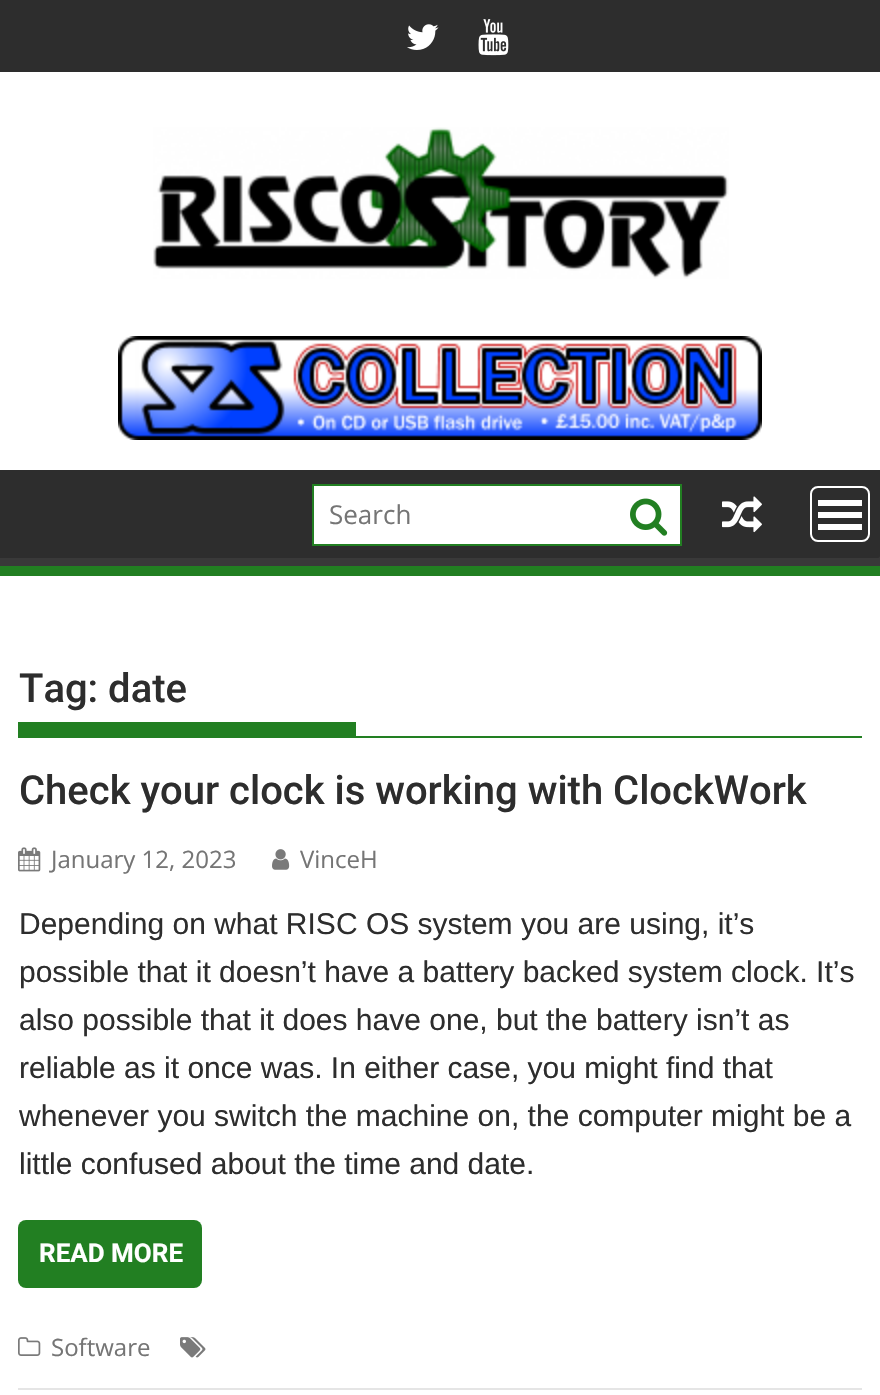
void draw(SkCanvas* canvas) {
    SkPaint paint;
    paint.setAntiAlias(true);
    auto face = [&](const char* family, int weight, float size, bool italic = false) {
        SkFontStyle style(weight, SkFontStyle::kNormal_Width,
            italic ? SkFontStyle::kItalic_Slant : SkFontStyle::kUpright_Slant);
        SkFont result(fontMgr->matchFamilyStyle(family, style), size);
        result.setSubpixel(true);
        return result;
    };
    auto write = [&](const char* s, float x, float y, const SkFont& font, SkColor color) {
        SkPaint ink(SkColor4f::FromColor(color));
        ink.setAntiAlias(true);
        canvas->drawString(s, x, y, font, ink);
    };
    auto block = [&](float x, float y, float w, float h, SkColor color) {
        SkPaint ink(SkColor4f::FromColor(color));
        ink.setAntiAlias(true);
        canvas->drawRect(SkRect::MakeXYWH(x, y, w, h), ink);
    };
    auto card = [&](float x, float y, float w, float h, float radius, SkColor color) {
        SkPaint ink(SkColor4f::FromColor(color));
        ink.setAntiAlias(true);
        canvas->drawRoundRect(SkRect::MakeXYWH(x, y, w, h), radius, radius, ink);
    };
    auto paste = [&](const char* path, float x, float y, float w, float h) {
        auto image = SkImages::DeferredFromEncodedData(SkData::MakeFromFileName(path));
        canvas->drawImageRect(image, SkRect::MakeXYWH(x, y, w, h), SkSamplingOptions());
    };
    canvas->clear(SK_ColorWHITE);
    block(0, 0, 880, 72, SkColorSetRGB(45, 45, 45));
    paste("pic1.png", 407, 24, 32, 26);
    paste("pic2.png", 478, 19, 31, 37);
    paste("pic3.png", 153, 127, 576, 152);
    paste("pic4.png", 118, 336, 644, 104);
    block(0, 470, 880, 88, SkColorSetRGB(45, 45, 45));
    canvas->save();
    canvas->clipRect(SkRect::MakeXYWH(0, 470, 880, 96));
    paint.setColor(SkColorSetRGB(57, 57, 57));
    canvas->drawPath(SkPathBuilder(SkPathFillType::kEvenOdd).moveTo(-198, 272).lineTo(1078, 272).lineTo(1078, 764).lineTo(-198, 764).close().moveTo(-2, 458).lineTo(878, 458).cubicTo(879, 458, 880, 459, 880, 460).lineTo(880, 556).cubicTo(880, 557, 879, 558, 878, 558).lineTo(-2, 558).cubicTo(-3, 558, -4, 557, -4, 556).lineTo(-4, 460).cubicTo(-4, 459, -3, 458, -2, 458).close().detach(), paint);
    canvas->restore();
    block(0, 566, 880, 10, SkColorSetRGB(34, 127, 34));
    paint.setColor(SK_ColorWHITE);
    canvas->drawRect(SkRect::MakeXYWH(313, 485, 368, 60), paint);
    paint.setStyle(SkPaint::kStroke_Style);
    paint.setStrokeWidth(2);
    paint.setColor(SkColorSetRGB(34, 127, 34));
    canvas->drawRect(SkRect::MakeXYWH(313, 485, 368, 60), paint);
    auto kFont1 = face("Open Sans", 400, 26);
    write("Search", 329, 524, kFont1, SkColorSetRGB(117, 117, 117));
    paste("pic5.png", 630, 498, 38, 38);
    paste("pic6.png", 722, 496, 40, 37);
    paint.setColor(SK_ColorWHITE);
    canvas->drawRoundRect(SkRect::MakeXYWH(811, 487, 58, 54), 7, 7, paint);
    block(818, 524, 44, 6, SK_ColorWHITE);
    block(818, 512, 44, 6, SK_ColorWHITE);
    block(818, 500, 44, 6, SK_ColorWHITE);
    block(18, 736, 844, 2, SkColorSetRGB(34, 127, 34));
    auto kFont2 = face("Roboto", 500, 40);
    write("Tag: date", 19, 702, kFont2, SkColorSetRGB(45, 45, 45));
    block(18, 722, 338, 14, SkColorSetRGB(34, 127, 34));
    block(18, 1388, 844, 2, SkColorSetRGB(229, 229, 229));
    write("Check your clock is working with ClockWork", 19, 804, kFont2, SkColorSetRGB(45, 45, 45));
    paste("pic7.png", 18, 847, 23, 25);
    auto kFont3 = face("Open Sans", 400, 24);
    write("January 12, 2023", 51, 868, kFont3, SkColorSetRGB(117, 117, 117));
    paste("pic8.png", 272, 849, 18, 21);
    write("VinceH", 300, 868, kFont3, SkColorSetRGB(117, 117, 117));
    auto kFont4 = face("Liberation Sans", 400, 30);
    write("Depending on what RISC OS system you are using, it’s", 19, 934, kFont4, SkColorSetRGB(45, 45, 45));
    write("possible that it doesn’t have a battery backed system clock. It’s", 19, 982, kFont4, SkColorSetRGB(45, 45, 45));
    write("also possible that it does have one, but the battery isn’t as", 19, 1030, kFont4, SkColorSetRGB(45, 45, 45));
    write("reliable as it once was. In either case, you might find that", 19, 1078, kFont4, SkColorSetRGB(45, 45, 45));
    write("whenever you switch the machine on, the computer might be a", 19, 1126, kFont4, SkColorSetRGB(45, 45, 45));
    write("little confused about the time and date.", 19, 1174, kFont4, SkColorSetRGB(45, 45, 45));
    card(18, 1220, 184, 68, 8, SkColorSetRGB(34, 127, 34));
    auto kFont5 = face("Roboto", 700, 26);
    write("READ MORE", 39, 1262, kFont5, SK_ColorWHITE);
    paste("pic9.png", 18, 1337, 23, 19);
    write("Software", 51, 1356, kFont3, SkColorSetRGB(117, 117, 117));
    paste("pic10.png", 180, 1337, 26, 21);
}
